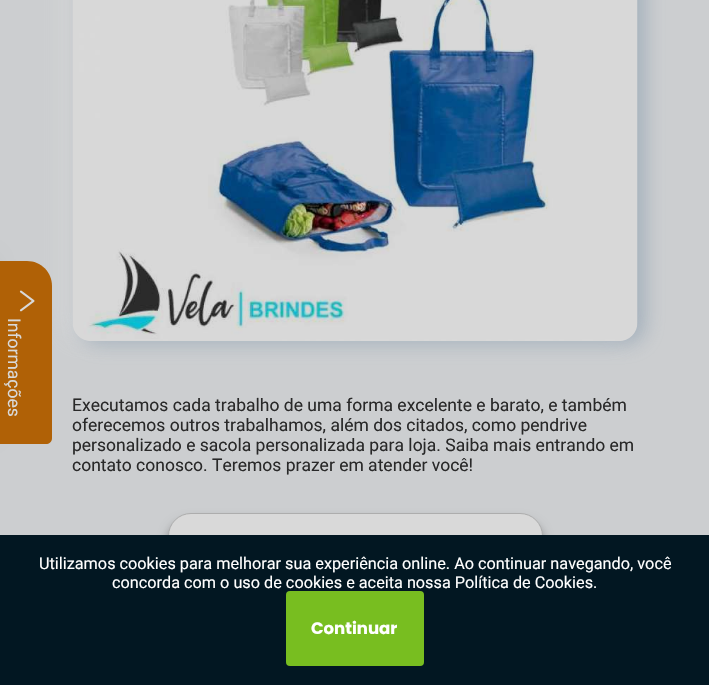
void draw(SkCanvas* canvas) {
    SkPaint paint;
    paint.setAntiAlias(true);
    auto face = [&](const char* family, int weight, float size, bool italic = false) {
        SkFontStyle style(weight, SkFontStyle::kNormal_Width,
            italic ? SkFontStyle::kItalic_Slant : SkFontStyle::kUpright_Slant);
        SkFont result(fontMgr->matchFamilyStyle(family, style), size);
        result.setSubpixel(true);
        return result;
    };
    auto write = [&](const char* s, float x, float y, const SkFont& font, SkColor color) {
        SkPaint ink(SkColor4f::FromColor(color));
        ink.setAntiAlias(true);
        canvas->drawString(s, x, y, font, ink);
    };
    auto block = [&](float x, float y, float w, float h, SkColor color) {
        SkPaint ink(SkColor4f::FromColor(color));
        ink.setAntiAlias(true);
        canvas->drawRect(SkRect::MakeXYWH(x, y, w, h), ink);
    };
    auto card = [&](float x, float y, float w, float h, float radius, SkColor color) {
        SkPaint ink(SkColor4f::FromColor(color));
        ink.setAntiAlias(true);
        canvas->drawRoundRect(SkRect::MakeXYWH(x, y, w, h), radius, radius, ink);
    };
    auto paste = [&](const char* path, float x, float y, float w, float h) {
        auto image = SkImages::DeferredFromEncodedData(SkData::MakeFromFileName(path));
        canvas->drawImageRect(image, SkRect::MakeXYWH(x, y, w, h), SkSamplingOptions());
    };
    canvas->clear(SkColorSetRGB(204, 206, 208));
    paint.setColor(SkColorSetRGB(113, 113, 113));
    paint.setMaskFilter(SkMaskFilter::MakeBlur(kNormal_SkBlurStyle, 15));
    canvas->drawRect(SkRect::MakeXYWH(-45, 269, 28, 155), paint);
    paint.setMaskFilter(nullptr);
    paint.setColor(SkColorSetARGB(204, 217, 217, 217));
    paint.setMaskFilter(SkMaskFilter::MakeBlur(kNormal_SkBlurStyle, 10));
    canvas->drawRoundRect(SkRect::MakeXYWH(65, -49, 565, 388), 19, 19, paint);
    paint.setMaskFilter(nullptr);
    paint.setColor(SkColorSetARGB(122, 116, 140, 162));
    paint.setMaskFilter(SkMaskFilter::MakeBlur(kNormal_SkBlurStyle, 10));
    canvas->drawRoundRect(SkRect::MakeXYWH(80, -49, 565, 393), 19, 19, paint);
    paint.setMaskFilter(nullptr);
    paint.setColor(SkColorSetRGB(176, 97, 6));
    canvas->drawPath(SkPathBuilder().moveTo(52, 286).lineTo(52, 438).cubicTo(52, 442, 49, 444, 46, 444).lineTo(-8, 444).lineTo(-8, 261).lineTo(27, 261).cubicTo(41, 261, 52, 272, 52, 286).close().detach(), paint);
    paste("pic1.png", 19, 290, 16, 22);
    auto kFont1 = face("Roboto", 400, 17.5f);
    canvas->save();
    canvas->rotate(90, 8, 318);
    write("Informações", 8, 318, kFont1, SkColorSetRGB(217, 217, 217));
    canvas->restore();
    paste("pic2.png", 72, 0, 566, 341);
    write("Executamos cada trabalho de uma forma excelente e barato, e também", 72, 411, kFont1, SkColorSetRGB(41, 41, 41));
    write("oferecemos outros trabalhamos, além dos citados, como pendrive", 72, 431, kFont1, SkColorSetRGB(41, 41, 41));
    write("personalizado e sacola personalizada para loja. Saiba mais entrando em", 72, 451, kFont1, SkColorSetRGB(41, 41, 41));
    write("contato conosco. Teremos prazer em atender você!", 72, 471, kFont1, SkColorSetRGB(41, 41, 41));
    paint.setColor(SkColorSetARGB(102, 0, 0, 0));
    paint.setMaskFilter(SkMaskFilter::MakeBlur(kNormal_SkBlurStyle, 5.5f));
    canvas->drawRoundRect(SkRect::MakeXYWH(168, 521, 375, 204), 23, 23, paint);
    paint.setMaskFilter(nullptr);
    paint.setColor(SkColorSetRGB(217, 217, 217));
    canvas->drawRoundRect(SkRect::MakeXYWH(168.5f, 513.5f, 374, 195), 22.5f, 22.5f, paint);
    paint.setStyle(SkPaint::kStroke_Style);
    paint.setStrokeWidth(1);
    paint.setColor(SkColorSetRGB(173, 173, 173));
    canvas->drawRoundRect(SkRect::MakeXYWH(168.5f, 513.5f, 374, 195), 22.5f, 22.5f, paint);
    block(0, 535, 709, 150, SkColorSetRGB(2, 23, 34));
    auto kFont2 = face("Roboto", 400, 16.25f);
    write("Utilizamos cookies para melhorar sua experiência online. Ao continuar navegando, você", 39, 569, kFont2, SK_ColorWHITE);
    write("concorda com o uso de cookies e aceita nossa Política de Cookies.", 112, 588, kFont2, SK_ColorWHITE);
    card(286, 591, 138, 75, 4, SkColorSetRGB(120, 190, 32));
    auto kFont3 = face("Poppins", 700, 16.5f);
    write("Continuar", 311, 634, kFont3, SK_ColorWHITE);
}
